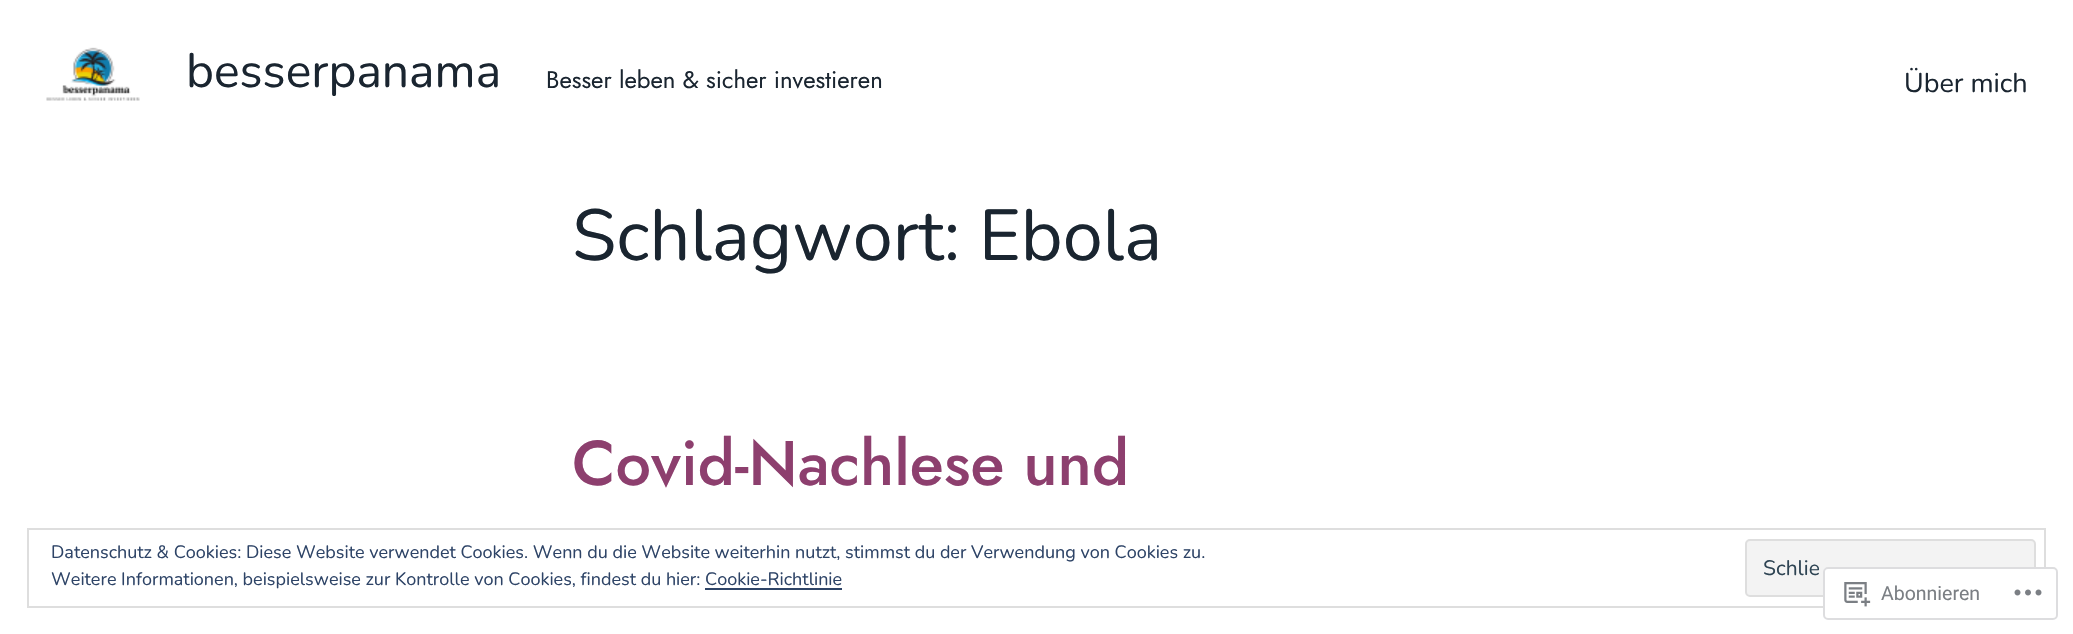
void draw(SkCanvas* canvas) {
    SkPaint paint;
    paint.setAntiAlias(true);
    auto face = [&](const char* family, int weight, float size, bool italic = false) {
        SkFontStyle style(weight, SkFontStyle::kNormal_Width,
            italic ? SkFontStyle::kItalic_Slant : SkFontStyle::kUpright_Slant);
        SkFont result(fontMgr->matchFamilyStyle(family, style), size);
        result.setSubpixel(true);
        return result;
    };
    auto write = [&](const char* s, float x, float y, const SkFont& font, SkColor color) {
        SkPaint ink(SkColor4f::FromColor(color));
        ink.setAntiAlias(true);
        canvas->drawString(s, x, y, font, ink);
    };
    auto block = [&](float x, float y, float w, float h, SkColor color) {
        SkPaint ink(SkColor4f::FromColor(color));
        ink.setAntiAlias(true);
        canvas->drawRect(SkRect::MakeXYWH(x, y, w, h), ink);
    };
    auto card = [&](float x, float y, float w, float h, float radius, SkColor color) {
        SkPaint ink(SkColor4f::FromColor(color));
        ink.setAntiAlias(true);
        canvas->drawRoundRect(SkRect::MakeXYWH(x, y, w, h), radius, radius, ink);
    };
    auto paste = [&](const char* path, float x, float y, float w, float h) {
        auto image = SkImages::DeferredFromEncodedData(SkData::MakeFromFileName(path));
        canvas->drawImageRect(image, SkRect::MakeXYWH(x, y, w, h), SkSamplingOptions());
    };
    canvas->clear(SK_ColorWHITE);
    paste("pic1.png", 46, 47, 94, 54);
    auto kFont1 = face("Nunito", 400, 48);
    write("besserpanama", 186, 87, kFont1, SkColorSetRGB(26, 37, 48));
    auto kFont2 = face("Jost", 400, 24);
    write("Besser leben & sicher investieren", 546, 88, kFont2, SkColorSetRGB(26, 37, 48));
    auto kFont3 = face("Nunito", 400, 27);
    write("Über mich", 1904, 92, kFont3, SkColorSetRGB(26, 37, 48));
    auto kFont4 = face("Nunito", 400, 72);
    write("Schlagwort: Ebola", 572, 260, kFont4, SkColorSetRGB(26, 37, 48));
    auto kFont5 = face("Jost", 500, 63);
    write("Covid-Nachlese und", 572, 485, kFont5, SkColorSetRGB(141, 63, 110));
    paint.setStyle(SkPaint::kStroke_Style);
    paint.setStrokeWidth(2);
    paint.setColor(SkColorSetRGB(222, 222, 222));
    canvas->drawRect(SkRect::MakeXYWH(28, 529, 2017, 78), paint);
    auto kFont6 = face("Nunito", 400, 18);
    write("Datenschutz & Cookies: Diese Website verwendet Cookies. Wenn du die Website weiterhin nutzt, stimmst du der Verwendung von Cookies zu.", 51, 558, kFont6, SkColorSetRGB(46, 68, 103));
    paint.setStyle(SkPaint::kFill_Style);
    paint.setColor(SkColorSetRGB(243, 243, 243));
    canvas->drawRoundRect(SkRect::MakeXYWH(1746, 540, 289, 56), 4, 4, paint);
    paint.setStyle(SkPaint::kStroke_Style);
    paint.setColor(SkColorSetRGB(222, 222, 222));
    canvas->drawRoundRect(SkRect::MakeXYWH(1746, 540, 289, 56), 4, 4, paint);
    auto kFont7 = face("Nunito", 400, 21);
    write("Schlie", 1763, 575, kFont7, SkColorSetRGB(46, 68, 83));
    write("Weitere Informationen, beispielsweise zur Kontrolle von Cookies, findest du hier: Cookie-Richtlinie", 51, 585, kFont6, SkColorSetRGB(46, 68, 103));
    block(705, 588, 137, 2, SkColorSetRGB(46, 68, 103));
    card(1823, 567, 235, 53, 5, SkColorSetARGB(250, 255, 255, 255));
    paint.setColor(SkColorSetARGB(250, 220, 220, 222));
    canvas->drawRoundRect(SkRect::MakeXYWH(1824, 568, 233, 51), 4, 4, paint);
    paste("pic2.png", 1844, 582, 27, 25);
    auto kFont8 = face("Roboto", 400, 19.5f);
    write("Abonnieren", 1881, 600, kFont8, SkColorSetRGB(123, 127, 132));
    paste("pic3.png", 2014, 589, 28, 7);
}
